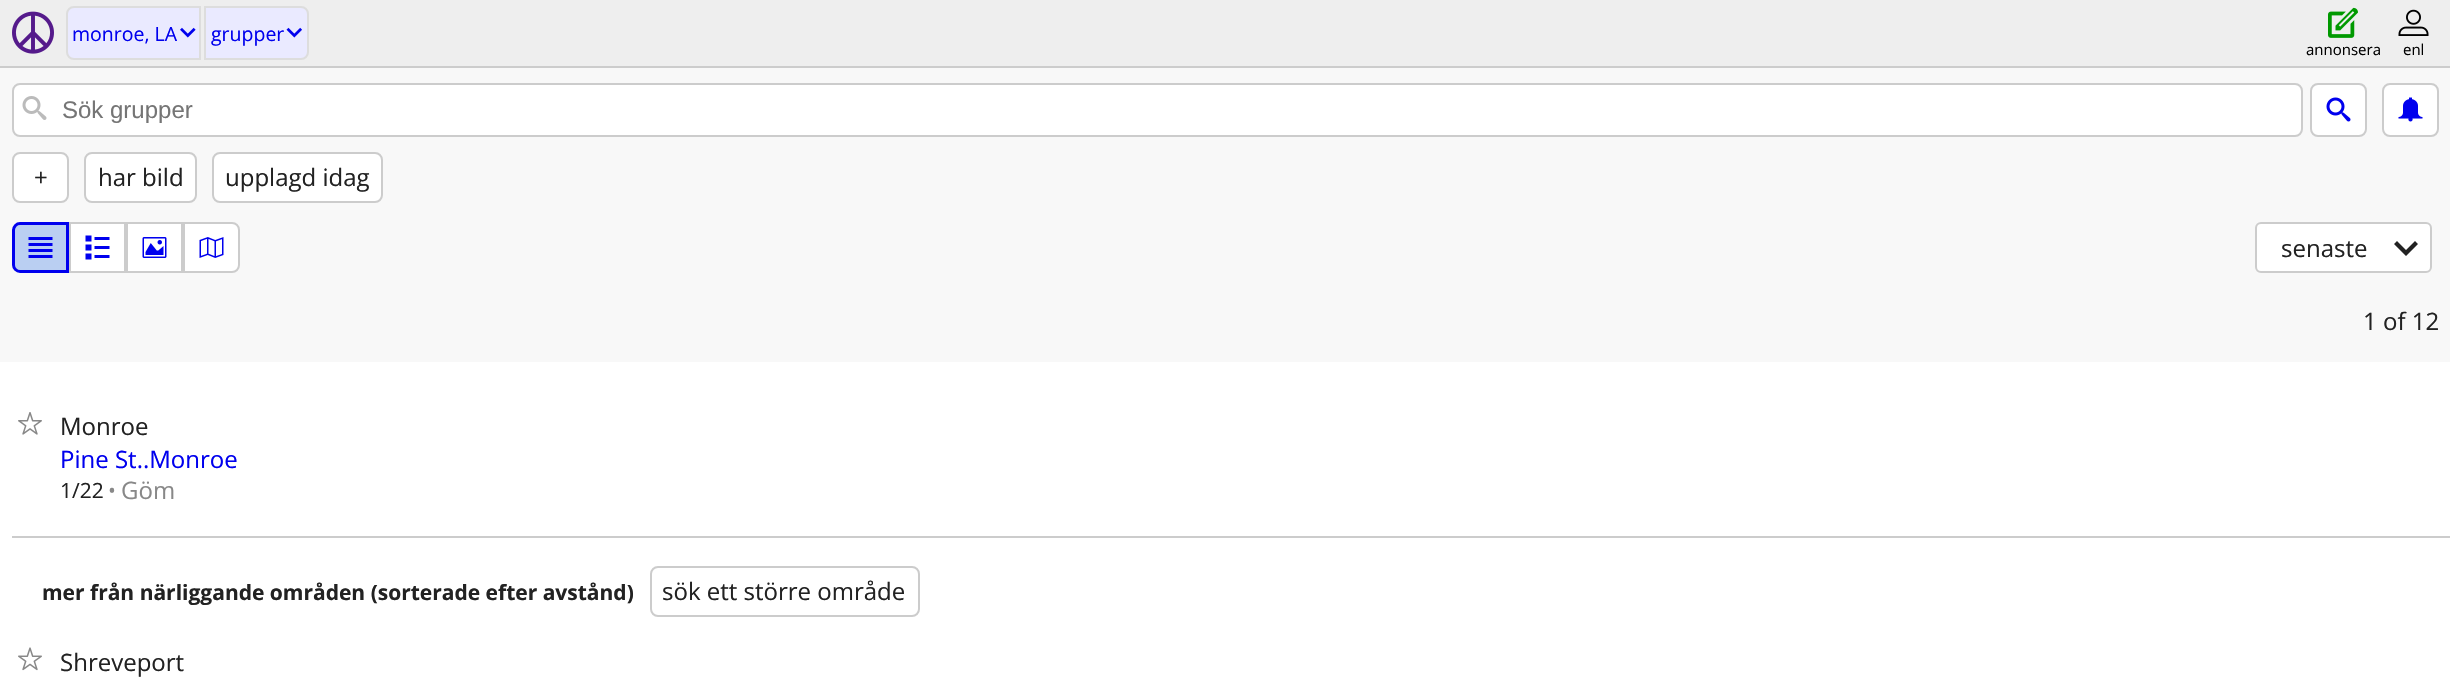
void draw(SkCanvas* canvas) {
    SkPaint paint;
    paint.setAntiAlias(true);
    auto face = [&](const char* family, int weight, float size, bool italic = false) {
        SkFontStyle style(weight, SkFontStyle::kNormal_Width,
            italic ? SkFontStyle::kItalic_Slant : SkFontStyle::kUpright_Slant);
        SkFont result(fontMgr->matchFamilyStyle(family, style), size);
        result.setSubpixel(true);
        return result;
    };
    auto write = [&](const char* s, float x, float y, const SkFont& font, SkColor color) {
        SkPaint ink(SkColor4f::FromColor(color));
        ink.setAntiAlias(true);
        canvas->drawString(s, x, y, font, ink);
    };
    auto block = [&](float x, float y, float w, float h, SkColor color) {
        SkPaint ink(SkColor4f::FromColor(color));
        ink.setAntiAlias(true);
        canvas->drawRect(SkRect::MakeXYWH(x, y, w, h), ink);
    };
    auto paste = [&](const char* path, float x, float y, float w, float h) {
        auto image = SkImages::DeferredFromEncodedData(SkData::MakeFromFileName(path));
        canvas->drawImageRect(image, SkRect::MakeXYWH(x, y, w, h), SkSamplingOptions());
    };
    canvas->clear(SK_ColorWHITE);
    block(0, 0, 2450, 66, SkColorSetRGB(238, 238, 238));
    block(0, 66, 2450, 2, SkColorSetRGB(204, 204, 204));
    paste("pic1.png", 12, 11, 42, 43);
    paint.setColor(SkColorSetRGB(234, 234, 255));
    canvas->drawPath(SkPathBuilder().moveTo(74, 7).lineTo(200, 7).lineTo(200, 59).lineTo(74, 59).cubicTo(70, 59, 67, 56, 67, 52).lineTo(67, 14).cubicTo(67, 10, 70, 7, 74, 7).close().detach(), paint);
    paint.setStyle(SkPaint::kStroke_Style);
    paint.setStrokeWidth(2);
    paint.setColor(SkColorSetRGB(221, 221, 221));
    canvas->drawPath(SkPathBuilder().moveTo(74, 7).lineTo(200, 7).lineTo(200, 59).lineTo(74, 59).cubicTo(70, 59, 67, 56, 67, 52).lineTo(67, 14).cubicTo(67, 10, 70, 7, 74, 7).close().detach(), paint);
    auto kFont1 = face("Open Sans", 400, 19.5f);
    write("monroe, LA", 72, 41, kFont1, SkColorSetRGB(0, 0, 238));
    paste("pic2.png", 180, 27, 16, 11);
    paint.setStyle(SkPaint::kFill_Style);
    paint.setColor(SkColorSetRGB(234, 234, 255));
    canvas->drawPath(SkPathBuilder().moveTo(205, 7).lineTo(301, 7).cubicTo(305, 7, 308, 10, 308, 14).lineTo(308, 52).cubicTo(308, 56, 305, 59, 301, 59).lineTo(205, 59).close().detach(), paint);
    paint.setStyle(SkPaint::kStroke_Style);
    paint.setColor(SkColorSetRGB(221, 221, 221));
    canvas->drawPath(SkPathBuilder().moveTo(205, 7).lineTo(301, 7).cubicTo(305, 7, 308, 10, 308, 14).lineTo(308, 52).cubicTo(308, 56, 305, 59, 301, 59).lineTo(205, 59).close().detach(), paint);
    write("grupper", 211, 41, kFont1, SkColorSetRGB(0, 0, 238));
    paste("pic3.png", 286, 27, 16, 11);
    paste("pic4.png", 2328, 7, 30, 31);
    auto kFont2 = face("Open Sans", 400, 15);
    write("annonsera", 2306, 55, kFont2, SK_ColorBLACK);
    paste("pic5.png", 2398, 9, 31, 27);
    write("enl", 2403, 55, kFont2, SK_ColorBLACK);
    block(0, 68, 2450, 294, SkColorSetRGB(248, 248, 248));
    paint.setStyle(SkPaint::kFill_Style);
    paint.setColor(SK_ColorWHITE);
    canvas->drawRoundRect(SkRect::MakeXYWH(13, 84, 2289, 52), 7, 7, paint);
    paint.setStyle(SkPaint::kStroke_Style);
    paint.setColor(SkColorSetRGB(204, 204, 204));
    canvas->drawRoundRect(SkRect::MakeXYWH(13, 84, 2289, 52), 7, 7, paint);
    paste("pic6.png", 22, 96, 25, 24);
    auto kFont3 = face("Liberation Sans", 400, 24);
    write("Sök grupper", 62, 118, kFont3, SkColorSetRGB(117, 117, 117));
    paint.setStyle(SkPaint::kFill_Style);
    paint.setColor(SK_ColorWHITE);
    canvas->drawRoundRect(SkRect::MakeXYWH(2311, 84, 55, 52), 7, 7, paint);
    paint.setStyle(SkPaint::kStroke_Style);
    paint.setColor(SkColorSetRGB(204, 204, 204));
    canvas->drawRoundRect(SkRect::MakeXYWH(2311, 84, 55, 52), 7, 7, paint);
    paste("pic7.png", 2326, 97, 25, 25);
    paint.setStyle(SkPaint::kFill_Style);
    paint.setColor(SK_ColorWHITE);
    canvas->drawRoundRect(SkRect::MakeXYWH(2383, 84, 55, 52), 7, 7, paint);
    paint.setStyle(SkPaint::kStroke_Style);
    paint.setColor(SkColorSetRGB(204, 204, 204));
    canvas->drawRoundRect(SkRect::MakeXYWH(2383, 84, 55, 52), 7, 7, paint);
    paste("pic8.png", 2398, 97, 25, 25);
    paint.setStyle(SkPaint::kFill_Style);
    paint.setColor(SK_ColorWHITE);
    canvas->drawRoundRect(SkRect::MakeXYWH(13, 153, 55, 49), 7, 7, paint);
    paint.setStyle(SkPaint::kStroke_Style);
    paint.setColor(SkColorSetRGB(204, 204, 204));
    canvas->drawRoundRect(SkRect::MakeXYWH(13, 153, 55, 49), 7, 7, paint);
    auto kFont4 = face("Open Sans", 400, 24);
    write("+", 34, 186, kFont4, SkColorSetRGB(34, 34, 34));
    paint.setStyle(SkPaint::kFill_Style);
    paint.setColor(SK_ColorWHITE);
    canvas->drawRoundRect(SkRect::MakeXYWH(85, 153, 111, 49), 7, 7, paint);
    paint.setStyle(SkPaint::kStroke_Style);
    paint.setColor(SkColorSetRGB(204, 204, 204));
    canvas->drawRoundRect(SkRect::MakeXYWH(85, 153, 111, 49), 7, 7, paint);
    write("har bild", 98, 186, kFont4, SkColorSetRGB(34, 34, 34));
    paint.setStyle(SkPaint::kFill_Style);
    paint.setColor(SK_ColorWHITE);
    canvas->drawRoundRect(SkRect::MakeXYWH(213, 153, 169, 49), 7, 7, paint);
    paint.setStyle(SkPaint::kStroke_Style);
    paint.setColor(SkColorSetRGB(204, 204, 204));
    canvas->drawRoundRect(SkRect::MakeXYWH(213, 153, 169, 49), 7, 7, paint);
    write("upplagd idag", 225, 186, kFont4, SkColorSetRGB(34, 34, 34));
    paint.setStyle(SkPaint::kFill_Style);
    paint.setColor(SkColorSetRGB(186, 207, 242));
    canvas->drawPath(SkPathBuilder().moveTo(20, 223.5f).lineTo(67.5f, 223.5f).lineTo(67.5f, 271.5f).lineTo(20, 271.5f).cubicTo(16.5f, 271.5f, 13.5f, 268.5f, 13.5f, 265).lineTo(13.5f, 230).cubicTo(13.5f, 226.5f, 16.5f, 223.5f, 20, 223.5f).close().detach(), paint);
    paint.setStyle(SkPaint::kStroke_Style);
    paint.setStrokeWidth(3);
    paint.setColor(SkColorSetRGB(0, 0, 238));
    canvas->drawPath(SkPathBuilder().moveTo(20, 223.5f).lineTo(67.5f, 223.5f).lineTo(67.5f, 271.5f).lineTo(20, 271.5f).cubicTo(16.5f, 271.5f, 13.5f, 268.5f, 13.5f, 265).lineTo(13.5f, 230).cubicTo(13.5f, 226.5f, 16.5f, 223.5f, 20, 223.5f).close().detach(), paint);
    paste("pic9.png", 28, 237, 25, 21);
    paint.setStyle(SkPaint::kFill_Style);
    paint.setColor(SK_ColorWHITE);
    canvas->drawRect(SkRect::MakeXYWH(70, 223, 55, 49), paint);
    paint.setStyle(SkPaint::kStroke_Style);
    paint.setStrokeWidth(2);
    paint.setColor(SkColorSetRGB(204, 204, 204));
    canvas->drawRect(SkRect::MakeXYWH(70, 223, 55, 49), paint);
    paste("pic10.png", 85, 235, 25, 25);
    paint.setStyle(SkPaint::kFill_Style);
    paint.setColor(SK_ColorWHITE);
    canvas->drawRect(SkRect::MakeXYWH(127, 223, 55, 49), paint);
    paint.setStyle(SkPaint::kStroke_Style);
    paint.setColor(SkColorSetRGB(204, 204, 204));
    canvas->drawRect(SkRect::MakeXYWH(127, 223, 55, 49), paint);
    paste("pic11.png", 142, 237, 25, 21);
    paint.setStyle(SkPaint::kFill_Style);
    paint.setColor(SK_ColorWHITE);
    canvas->drawPath(SkPathBuilder().moveTo(184, 223).lineTo(232, 223).cubicTo(236, 223, 239, 226, 239, 230).lineTo(239, 265).cubicTo(239, 269, 236, 272, 232, 272).lineTo(184, 272).close().detach(), paint);
    paint.setStyle(SkPaint::kStroke_Style);
    paint.setColor(SkColorSetRGB(204, 204, 204));
    canvas->drawPath(SkPathBuilder().moveTo(184, 223).lineTo(232, 223).cubicTo(236, 223, 239, 226, 239, 230).lineTo(239, 265).cubicTo(239, 269, 236, 272, 232, 272).lineTo(184, 272).close().detach(), paint);
    paste("pic12.png", 199, 237, 25, 21);
    paint.setStyle(SkPaint::kFill_Style);
    paint.setColor(SK_ColorWHITE);
    canvas->drawRoundRect(SkRect::MakeXYWH(2256, 223, 175, 49), 5, 5, paint);
    paint.setStyle(SkPaint::kStroke_Style);
    paint.setColor(SkColorSetRGB(204, 204, 204));
    canvas->drawRoundRect(SkRect::MakeXYWH(2256, 223, 175, 49), 5, 5, paint);
    write("senaste", 2281, 257, kFont4, SkColorSetRGB(34, 34, 34));
    paint.setStyle(SkPaint::kFill_Style);
    paint.setColor(SkColorSetRGB(34, 34, 34));
    canvas->drawPath(SkPathBuilder().moveTo(2418, 244).lineTo(2415, 241).lineTo(2406, 250).lineTo(2397, 241).lineTo(2394, 244).lineTo(2406, 256).close().detach(), paint);
    write("1 of 12", 2363, 330, kFont4, SkColorSetRGB(34, 34, 34));
    paste("pic13.png", 18, 412, 24, 23);
    write("Monroe", 60, 435, kFont4, SkColorSetRGB(34, 34, 34));
    write("Pine St..Monroe", 60, 468, kFont4, SkColorSetRGB(0, 0, 238));
    auto kFont5 = face("Open Sans", 400, 21);
    write("1/22", 60, 498, kFont5, SkColorSetRGB(34, 34, 34));
    write("•", 108, 498, kFont5, SkColorSetRGB(136, 136, 136));
    write("Göm", 121, 499, kFont4, SkColorSetRGB(136, 136, 136));
    block(12, 536, 2438, 2, SkColorSetRGB(204, 204, 204));
    auto kFont6 = face("Open Sans", 700, 21);
    write("mer från närliggande områden (sorterade efter avstånd)", 42, 600, kFont6, SkColorSetRGB(34, 34, 34));
    paint.setStyle(SkPaint::kStroke_Style);
    paint.setColor(SkColorSetRGB(204, 204, 204));
    canvas->drawRoundRect(SkRect::MakeXYWH(651, 567, 268, 49), 7, 7, paint);
    write("sök ett större område", 662, 600, kFont4, SkColorSetRGB(34, 34, 34));
    paste("pic14.png", 18, 647, 24, 24);
    write("Shreveport", 60, 671, kFont4, SkColorSetRGB(34, 34, 34));
}
